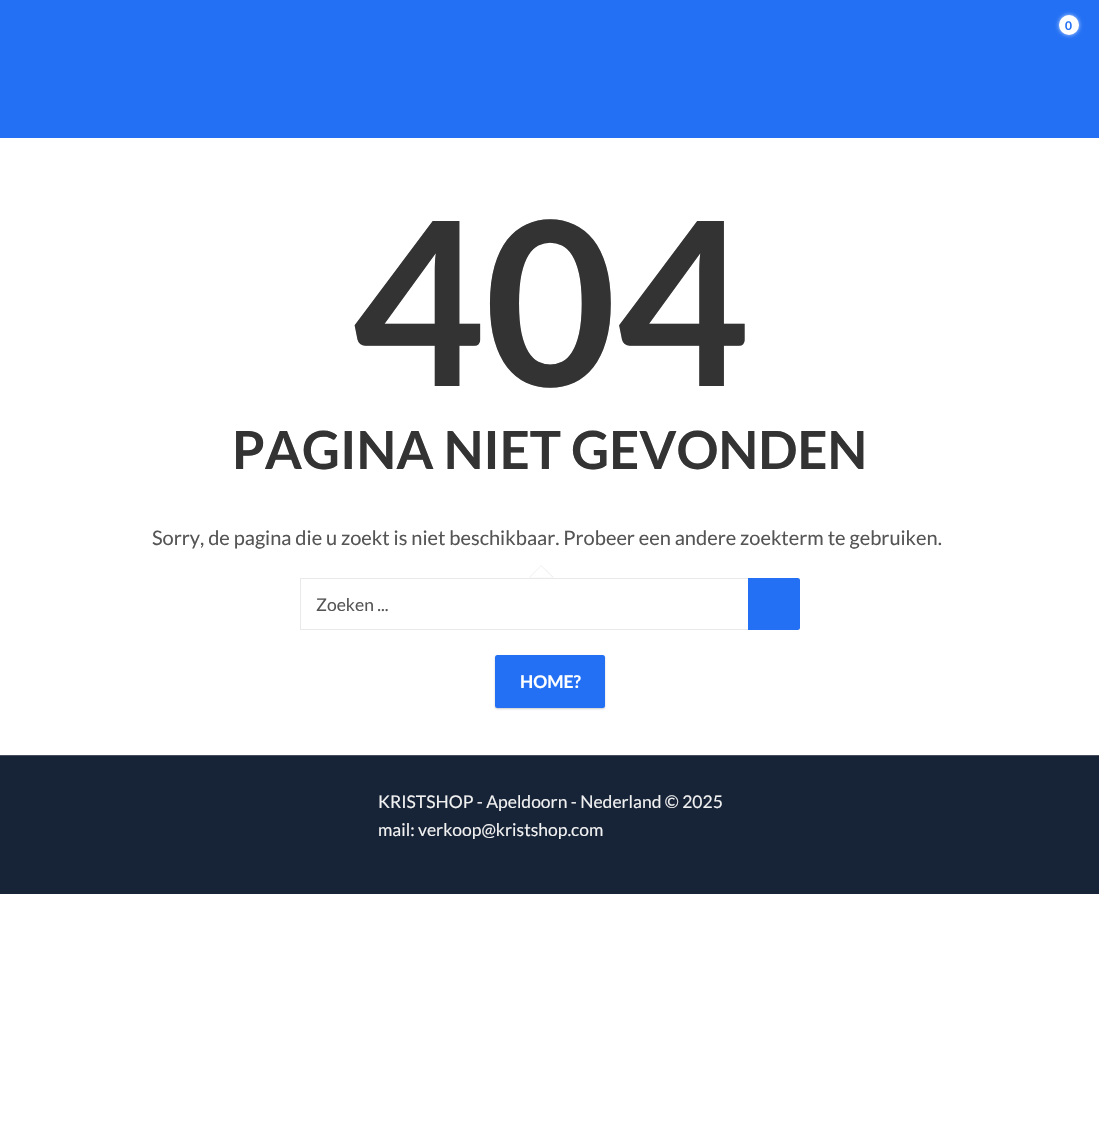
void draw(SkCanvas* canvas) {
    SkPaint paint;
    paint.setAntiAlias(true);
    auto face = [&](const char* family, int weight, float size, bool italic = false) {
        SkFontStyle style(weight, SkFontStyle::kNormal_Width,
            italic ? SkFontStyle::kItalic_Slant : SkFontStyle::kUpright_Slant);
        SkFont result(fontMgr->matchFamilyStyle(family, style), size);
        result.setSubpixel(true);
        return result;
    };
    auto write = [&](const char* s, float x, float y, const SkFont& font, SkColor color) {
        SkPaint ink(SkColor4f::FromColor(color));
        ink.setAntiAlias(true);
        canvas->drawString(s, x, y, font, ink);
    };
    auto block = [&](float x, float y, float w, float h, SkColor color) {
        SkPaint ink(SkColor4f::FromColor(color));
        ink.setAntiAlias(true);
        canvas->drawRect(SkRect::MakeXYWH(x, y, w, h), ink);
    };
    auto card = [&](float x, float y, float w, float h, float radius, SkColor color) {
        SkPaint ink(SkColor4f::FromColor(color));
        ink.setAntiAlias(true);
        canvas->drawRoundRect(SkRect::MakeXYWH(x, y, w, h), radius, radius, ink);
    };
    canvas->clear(SK_ColorWHITE);
    block(0, 0, 1099, 138, SkColorSetRGB(35, 112, 244));
    paint.setColor(SkColorSetARGB(179, 255, 255, 255));
    paint.setMaskFilter(SkMaskFilter::MakeBlur(kNormal_SkBlurStyle, 2));
    canvas->drawRoundRect(SkRect::MakeXYWH(1059, 15, 20, 20), 10, 10, paint);
    paint.setMaskFilter(nullptr);
    paint.setColor(SK_ColorWHITE);
    canvas->drawCircle(1069, 25, 10, paint);
    auto kFont1 = face("Lato", 700, 12);
    write("0", 1065, 30, kFont1, SkColorSetRGB(35, 112, 244));
    auto kFont2 = face("Lato", 700, 228);
    write("404", 352, 386, kFont2, SkColorSetRGB(51, 51, 51));
    auto kFont3 = face("Lato", 700, 52.5f);
    write("PAGINA NIET GEVONDEN", 232, 469, kFont3, SkColorSetRGB(51, 51, 51));
    auto kFont4 = face("Lato", 400, 20);
    write("Sorry, de pagina die u zoekt is niet beschikbaar. Probeer een andere zoekterm te gebruiken.", 152, 545, kFont4, SkColorSetRGB(85, 85, 85));
    paint.setColor(SkColorSetRGB(240, 240, 240));
    canvas->drawPath(SkPathBuilder().moveTo(554, 577.5f).lineTo(529, 577.5f).lineTo(541, 565).close().detach(), paint);
    paint.setColor(SK_ColorWHITE);
    canvas->drawPath(SkPathBuilder().moveTo(552.5f, 577.5f).lineTo(530, 577.5f).lineTo(541, 566).close().detach(), paint);
    paint.setStyle(SkPaint::kStroke_Style);
    paint.setStrokeWidth(1);
    paint.setColor(SkColorSetRGB(233, 233, 233));
    canvas->drawRect(SkRect::MakeXYWH(300.5f, 578.5f, 499, 51), paint);
    auto kFont5 = face("Lato", 400, 17.5f);
    write("Zoeken ...", 316, 611, kFont5, SkColorSetRGB(85, 85, 85));
    paint.setStyle(SkPaint::kFill_Style);
    paint.setColor(SkColorSetRGB(35, 112, 244));
    canvas->drawPath(SkPathBuilder().moveTo(748, 578).lineTo(797.5f, 578).cubicTo(799, 578, 800, 579, 800, 580.5f).lineTo(800, 627.5f).cubicTo(800, 629, 799, 630, 797.5f, 630).lineTo(748, 630).close().detach(), paint);
    paint.setColor(SkColorSetARGB(51, 0, 0, 0));
    paint.setMaskFilter(SkMaskFilter::MakeBlur(kNormal_SkBlurStyle, 1));
    canvas->drawRoundRect(SkRect::MakeXYWH(495, 656, 110, 53), 2.5f, 2.5f, paint);
    paint.setMaskFilter(nullptr);
    card(495, 655, 110, 53, 2.5f, SkColorSetRGB(35, 112, 244));
    auto kFont6 = face("Lato", 700, 17.5f);
    write("HOME?", 520, 688, kFont6, SK_ColorWHITE);
    block(0, 756, 1099, 138, SkColorSetRGB(23, 35, 55));
    block(0, 755, 1099, 1, SkColorSetRGB(69, 77, 94));
    write("KRISTSHOP - Apeldoorn - Nederland © 2025", 378, 808, kFont5, SkColorSetRGB(241, 241, 241));
    write("mail: verkoop@kristshop.com", 378, 836, kFont5, SkColorSetRGB(241, 241, 241));
}
